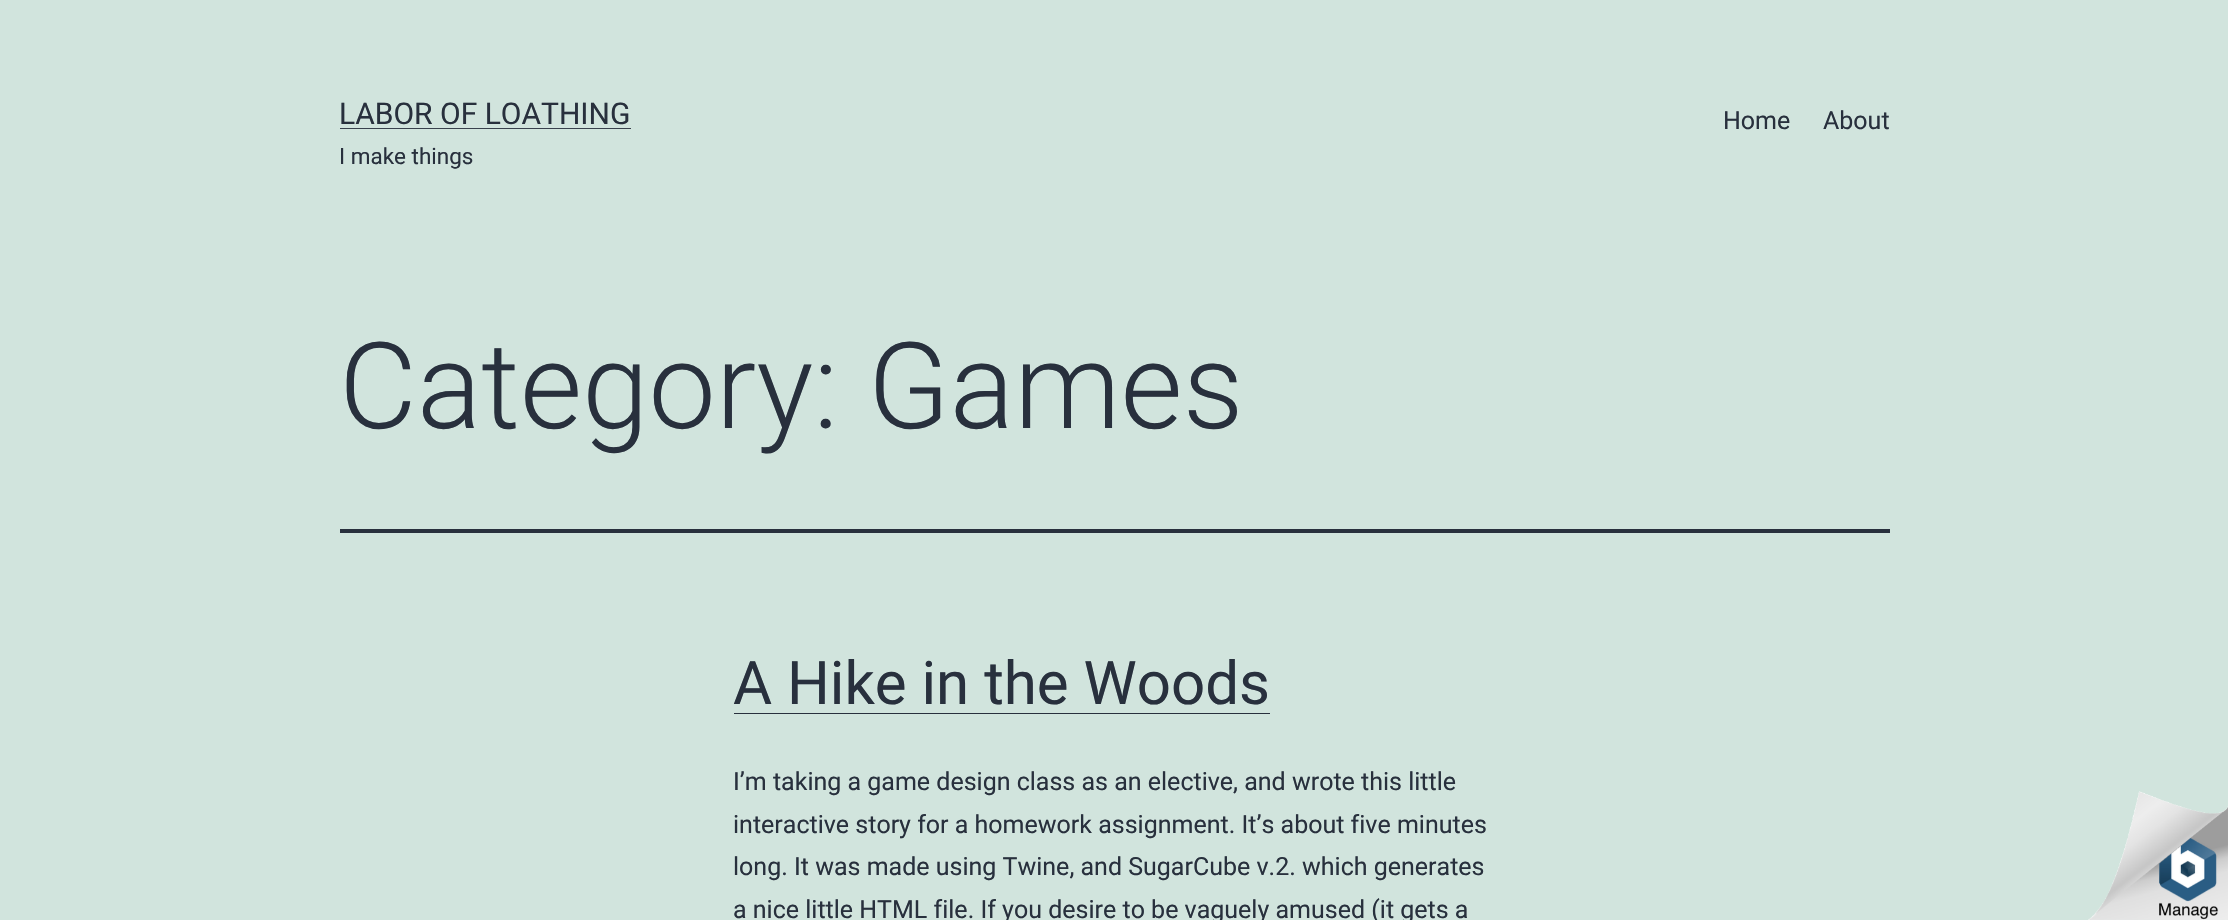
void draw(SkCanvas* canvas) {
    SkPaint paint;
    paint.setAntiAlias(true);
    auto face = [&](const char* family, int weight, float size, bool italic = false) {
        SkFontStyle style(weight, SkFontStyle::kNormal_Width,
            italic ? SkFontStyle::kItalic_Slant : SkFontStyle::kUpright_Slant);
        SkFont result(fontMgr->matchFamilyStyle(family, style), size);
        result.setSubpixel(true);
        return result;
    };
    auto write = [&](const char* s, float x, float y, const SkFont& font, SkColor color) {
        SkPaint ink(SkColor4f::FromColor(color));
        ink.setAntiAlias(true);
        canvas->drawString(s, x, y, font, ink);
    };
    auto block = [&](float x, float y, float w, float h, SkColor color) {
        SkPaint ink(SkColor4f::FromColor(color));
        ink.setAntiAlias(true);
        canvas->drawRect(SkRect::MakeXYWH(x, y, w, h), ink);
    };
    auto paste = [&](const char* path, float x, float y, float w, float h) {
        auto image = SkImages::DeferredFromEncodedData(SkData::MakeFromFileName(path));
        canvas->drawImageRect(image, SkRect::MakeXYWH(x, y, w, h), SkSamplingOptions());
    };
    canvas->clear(SkColorSetRGB(209, 228, 221));
    auto kFont1 = face("Roboto", 400, 30);
    write("LABOR OF LOATHING", 339, 124, kFont1, SkColorSetRGB(40, 48, 61));
    block(340, 128, 291, 1, SkColorSetRGB(57, 65, 77));
    auto kFont2 = face("Roboto", 400, 22.5f);
    write("I make things", 339, 164, kFont2, SkColorSetRGB(40, 48, 61));
    auto kFont3 = face("Roboto", 400, 25);
    write("Home", 1723, 129, kFont3, SkColorSetRGB(40, 48, 61));
    write("About", 1823, 129, kFont3, SkColorSetRGB(40, 48, 61));
    block(340, 529, 1550, 4, SkColorSetRGB(40, 48, 61));
    auto kFont4 = face("Roboto", 300, 120);
    write("Category: Games", 339, 428, kFont4, SkColorSetRGB(40, 48, 61));
    auto kFont5 = face("Roboto", 400, 60);
    write("A Hike in the Woods", 733, 704, kFont5, SkColorSetRGB(40, 48, 61));
    block(734, 713, 536, 1, SkColorSetRGB(40, 48, 61));
    write("I’m taking a game design class as an elective, and wrote this little", 733, 790, kFont3, SkColorSetRGB(40, 48, 61));
    write("interactive story for a homework assignment. It’s about five minutes", 733, 833, kFont3, SkColorSetRGB(40, 48, 61));
    write("long. It was made using Twine, and SugarCube v.2. which generates", 733, 875, kFont3, SkColorSetRGB(40, 48, 61));
    write("a nice little HTML file. If you desire to be vaguely amused (it gets a", 733, 918, kFont3, SkColorSetRGB(40, 48, 61));
    paste("pic1.png", 2088, 791, 140, 129);
}
